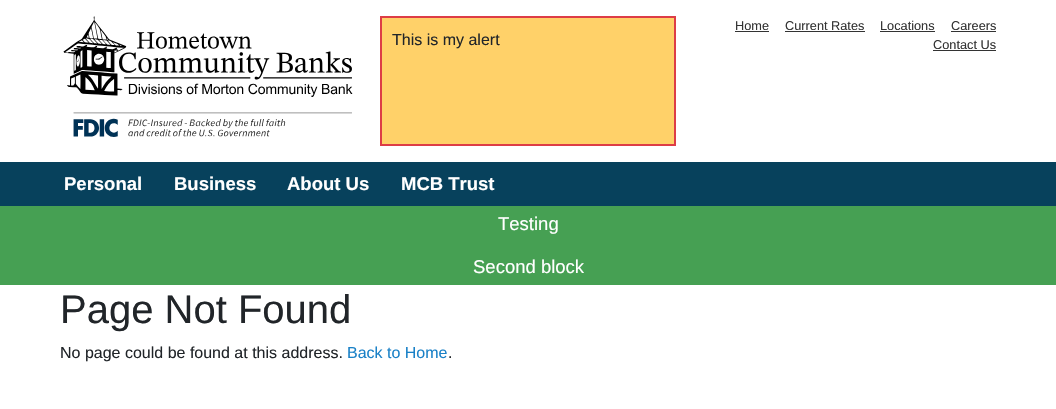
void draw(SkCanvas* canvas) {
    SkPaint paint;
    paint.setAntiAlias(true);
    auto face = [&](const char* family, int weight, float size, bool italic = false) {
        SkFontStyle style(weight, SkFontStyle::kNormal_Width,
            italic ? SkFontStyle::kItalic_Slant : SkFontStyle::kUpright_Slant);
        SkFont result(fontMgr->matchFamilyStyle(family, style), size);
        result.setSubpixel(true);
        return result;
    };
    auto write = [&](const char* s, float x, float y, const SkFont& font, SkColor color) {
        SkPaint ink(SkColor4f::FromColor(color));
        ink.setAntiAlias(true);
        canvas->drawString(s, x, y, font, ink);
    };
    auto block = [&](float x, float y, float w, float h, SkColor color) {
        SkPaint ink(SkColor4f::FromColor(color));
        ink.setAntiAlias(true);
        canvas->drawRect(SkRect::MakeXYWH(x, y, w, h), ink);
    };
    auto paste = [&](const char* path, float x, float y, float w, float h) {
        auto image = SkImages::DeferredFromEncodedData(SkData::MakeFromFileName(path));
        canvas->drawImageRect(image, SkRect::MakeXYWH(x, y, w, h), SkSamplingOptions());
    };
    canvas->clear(SK_ColorWHITE);
    paste("pic1.png", 63, 16, 290, 121);
    paint.setColor(SkColorSetRGB(255, 209, 105));
    canvas->drawRect(SkRect::MakeXYWH(381, 17, 294, 128), paint);
    paint.setStyle(SkPaint::kStroke_Style);
    paint.setStrokeWidth(2);
    paint.setColor(SkColorSetRGB(221, 61, 70));
    canvas->drawRect(SkRect::MakeXYWH(381, 17, 294, 128), paint);
    auto kFont1 = face("Liberation Sans", 400, 16);
    write("This is my alert", 392, 45, kFont1, SkColorSetRGB(33, 37, 41));
    auto kFont2 = face("Liberation Sans", 400, 12.75f);
    write("Home", 735, 30, kFont2, SkColorSetRGB(51, 51, 51));
    block(735, 31, 34, 1, SkColorSetRGB(51, 51, 51));
    write("Current Rates", 785, 30, kFont2, SkColorSetRGB(51, 51, 51));
    block(785, 31, 80, 1, SkColorSetRGB(51, 51, 51));
    write("Locations", 880, 30, kFont2, SkColorSetRGB(51, 51, 51));
    block(880, 31, 55, 1, SkColorSetRGB(51, 51, 51));
    write("Careers", 951, 30, kFont2, SkColorSetRGB(51, 51, 51));
    block(951, 31, 45, 1, SkColorSetRGB(51, 51, 51));
    write("Contact Us", 933, 49, kFont2, SkColorSetRGB(51, 51, 51));
    block(933, 50, 63, 1, SkColorSetRGB(51, 51, 51));
    block(0, 162, 1056, 44, SkColorSetRGB(7, 65, 92));
    auto kFont3 = face("Liberation Sans", 700, 18.5f);
    write("Personal", 64, 190, kFont3, SK_ColorWHITE);
    write("Business", 174, 190, kFont3, SK_ColorWHITE);
    write("About Us", 287, 190, kFont3, SK_ColorWHITE);
    write("MCB Trust", 401, 190, kFont3, SK_ColorWHITE);
    block(0, 206, 1056, 79, SkColorSetRGB(70, 160, 83));
    auto kFont4 = face("Liberation Sans", 400, 18.5f);
    write("Testing", 498, 230, kFont4, SK_ColorWHITE);
    write("Second block", 473, 273, kFont4, SK_ColorWHITE);
    auto kFont5 = face("Liberation Sans", 400, 40);
    write("Page Not Found", 60, 323, kFont5, SkColorSetRGB(33, 37, 41));
    write("No page could be found at this address.", 60, 358, kFont1, SkColorSetRGB(33, 37, 41));
    write("Back to Home", 347, 358, kFont1, SkColorSetRGB(26, 129, 199));
    write(".", 448, 358, kFont1, SkColorSetRGB(33, 37, 41));
}
